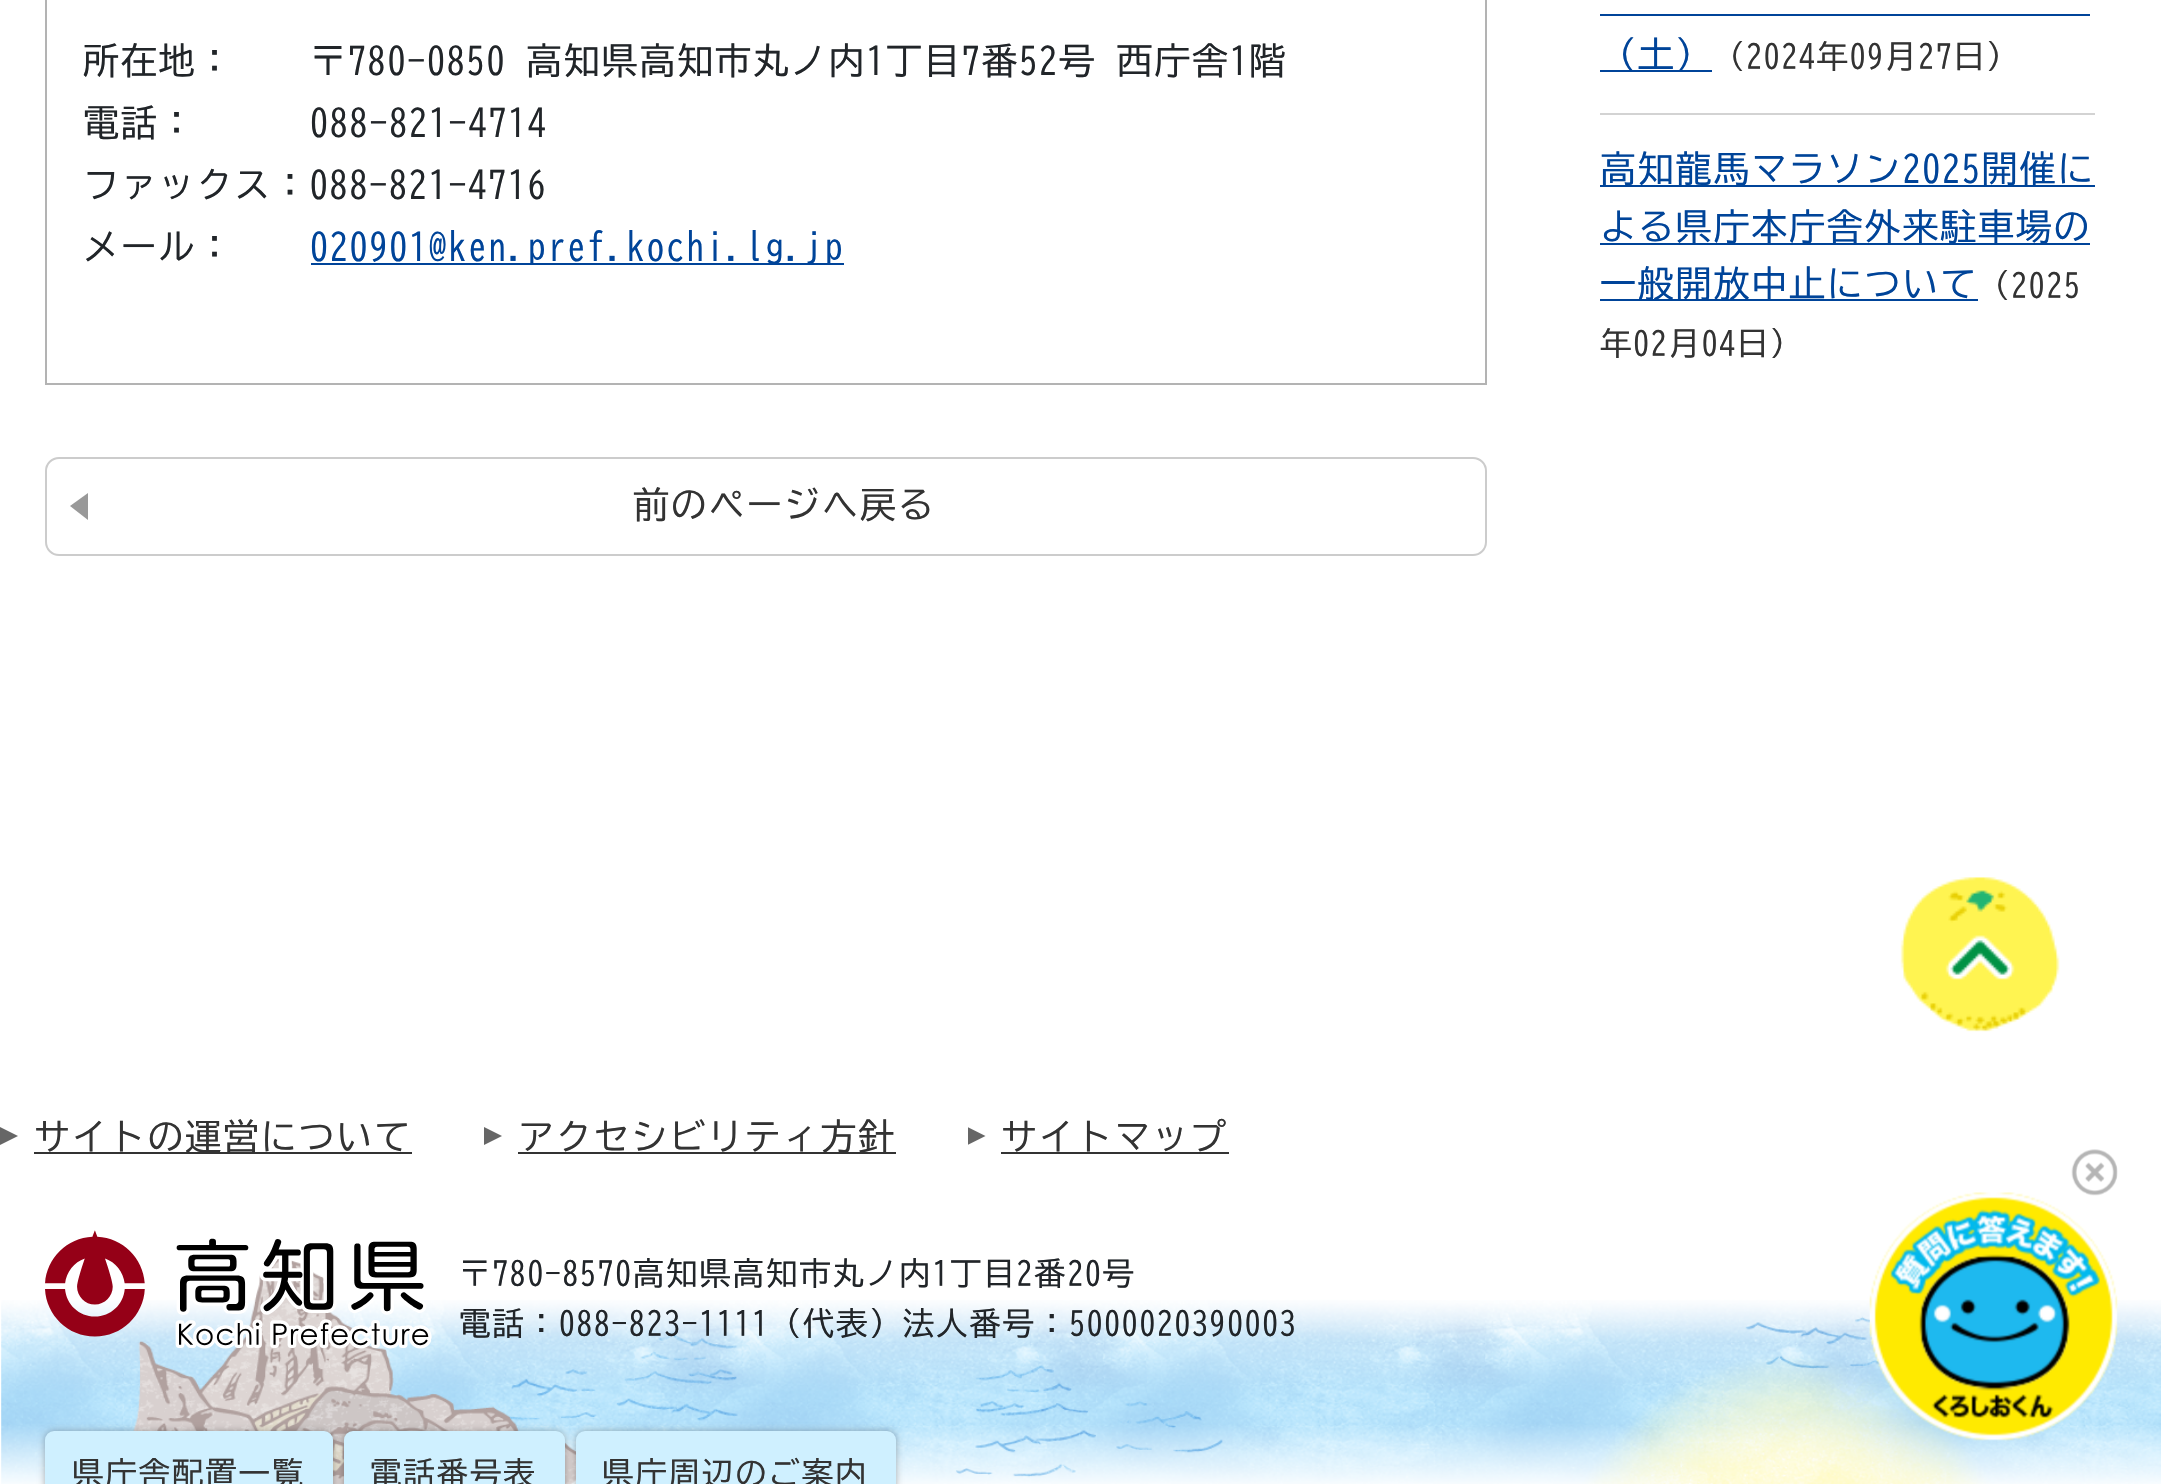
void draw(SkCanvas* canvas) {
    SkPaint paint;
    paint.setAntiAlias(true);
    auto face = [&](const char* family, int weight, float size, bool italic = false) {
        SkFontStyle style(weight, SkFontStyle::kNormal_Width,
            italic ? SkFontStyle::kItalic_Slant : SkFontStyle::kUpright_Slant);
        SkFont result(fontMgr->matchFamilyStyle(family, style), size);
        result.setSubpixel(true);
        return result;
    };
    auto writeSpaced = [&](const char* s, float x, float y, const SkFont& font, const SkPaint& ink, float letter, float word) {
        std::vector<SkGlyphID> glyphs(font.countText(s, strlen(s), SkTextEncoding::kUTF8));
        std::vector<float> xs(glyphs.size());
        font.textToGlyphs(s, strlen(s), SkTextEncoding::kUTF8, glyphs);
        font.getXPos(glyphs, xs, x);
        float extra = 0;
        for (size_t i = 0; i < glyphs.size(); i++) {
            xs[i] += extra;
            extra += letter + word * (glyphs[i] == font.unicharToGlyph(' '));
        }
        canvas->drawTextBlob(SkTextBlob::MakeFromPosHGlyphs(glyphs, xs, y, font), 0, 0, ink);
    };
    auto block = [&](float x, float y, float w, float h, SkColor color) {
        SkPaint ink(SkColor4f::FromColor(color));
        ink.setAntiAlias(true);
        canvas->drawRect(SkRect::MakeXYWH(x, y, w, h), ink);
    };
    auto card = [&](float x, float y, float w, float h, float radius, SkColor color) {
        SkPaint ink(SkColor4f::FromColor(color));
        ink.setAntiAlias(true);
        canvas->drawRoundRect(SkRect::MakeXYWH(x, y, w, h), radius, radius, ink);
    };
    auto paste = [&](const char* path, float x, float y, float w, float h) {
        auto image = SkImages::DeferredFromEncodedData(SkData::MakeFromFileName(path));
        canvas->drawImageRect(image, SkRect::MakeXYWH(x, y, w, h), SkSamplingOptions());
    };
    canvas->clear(SK_ColorWHITE);
    paste("pic1.png", 1, 1259, 2160, 225);
    paint.setStyle(SkPaint::kStroke_Style);
    paint.setStrokeWidth(2);
    paint.setColor(SkColorSetRGB(179, 179, 179));
    canvas->drawRect(SkRect::MakeXYWH(46, -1, 1440, 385), paint);
    auto kFont1 = face("BIZ UDGothic", 400, 36);
    paint.setStyle(SkPaint::kFill_Style);
    paint.setColor(SkColorSetRGB(33, 37, 41));
    writeSpaced("所在地：", 83, 74, kFont1, paint, 1.8f, 0);
    writeSpaced("〒780-0850 高知県高知市丸ノ内1丁目7番52号 西庁舎1階", 310, 74, kFont1, paint, 1.8f, 0);
    writeSpaced("電話：", 83, 136, kFont1, paint, 1.8f, 0);
    writeSpaced("088-821-4714", 310, 136, kFont1, paint, 1.8f, 0);
    writeSpaced("ファックス：088-821-4716", 83, 198, kFont1, paint, 1.8f, 0);
    writeSpaced("メール：", 83, 260, kFont1, paint, 1.8f, 0);
    block(311, 263, 533, 2, SkColorSetRGB(0, 68, 153));
    paint.setColor(SkColorSetRGB(0, 68, 153));
    writeSpaced("020901@ken.pref.kochi.lg.jp", 310, 260, kFont1, paint, 1.8f, 0);
    paint.setColor(SkColorSetRGB(153, 153, 153));
    canvas->drawPath(SkPathBuilder().moveTo(88, 520).lineTo(70, 506).lineTo(88, 493).close().detach(), paint);
    paint.setStyle(SkPaint::kStroke_Style);
    paint.setColor(SkColorSetRGB(204, 204, 204));
    canvas->drawRoundRect(SkRect::MakeXYWH(46, 458, 1440, 97), 13, 13, paint);
    paint.setStyle(SkPaint::kFill_Style);
    paint.setColor(SkColorSetRGB(51, 51, 51));
    writeSpaced("前のページへ戻る", 633, 518, kFont1, paint, 1.8f, 0);
    block(1600, 113, 495, 2, SkColorSetRGB(211, 211, 211));
    block(1600, 70, 112, 2, SkColorSetRGB(0, 68, 153));
    paint.setColor(SkColorSetRGB(0, 68, 153));
    writeSpaced("（土）", 1600, 68, kFont1, paint, 1.8f, 0);
    block(1600, 14, 490, 2, SkColorSetRGB(0, 68, 153));
    auto kFont2 = face("BIZ UDGothic", 400, 31.5f);
    paint.setColor(SkColorSetRGB(51, 51, 51));
    writeSpaced("（2024年09月27日）", 1713, 68, kFont2, paint, 1.8f, 0);
    block(1600, 185, 495, 2, SkColorSetRGB(0, 68, 153));
    paint.setColor(SkColorSetRGB(0, 68, 153));
    writeSpaced("高知龍馬マラソン2025開催に", 1600, 182, kFont1, paint, 1.8f, 0);
    block(1600, 243, 490, 2, SkColorSetRGB(0, 68, 153));
    writeSpaced("よる県庁本庁舎外来駐車場の", 1600, 240, kFont1, paint, 1.8f, 0);
    block(1600, 299, 378, 2, SkColorSetRGB(0, 68, 153));
    writeSpaced("一般開放中止について", 1600, 297, kFont1, paint, 1.8f, 0);
    paint.setColor(SkColorSetRGB(51, 51, 51));
    writeSpaced("（2025", 1978, 297, kFont2, paint, 1.8f, 0);
    writeSpaced("年02月04日）", 1600, 355, kFont2, paint, 1.8f, 0);
    paint.setColor(SkColorSetRGB(102, 102, 102));
    canvas->drawPath(SkPathBuilder().moveTo(0, 1127).lineTo(0, 1145).lineTo(18, 1136).close().detach(), paint);
    block(34, 1152, 378, 2, SkColorSetRGB(51, 51, 51));
    paint.setColor(SkColorSetRGB(51, 51, 51));
    writeSpaced("サイトの運営について", 34, 1150, kFont1, paint, 1.8f, 0);
    paint.setColor(SkColorSetRGB(102, 102, 102));
    canvas->drawPath(SkPathBuilder().moveTo(484, 1127).lineTo(484, 1145).lineTo(502, 1136).close().detach(), paint);
    block(518, 1152, 378, 2, SkColorSetRGB(51, 51, 51));
    paint.setColor(SkColorSetRGB(51, 51, 51));
    writeSpaced("アクセシビリティ方針", 518, 1150, kFont1, paint, 1.8f, 0);
    canvas->save();
    canvas->clipRect(SkRect::MakeXYWH(968, 1127, 18, 18));
    paint.setColor(SkColorSetRGB(102, 102, 102));
    canvas->drawPath(SkPathBuilder().moveTo(967.5f, 1127).lineTo(967.5f, 1145).lineTo(985.5f, 1136).close().detach(), paint);
    canvas->restore();
    paint.setColor(SkColorSetRGB(51, 51, 51));
    writeSpaced("サイトマップ", 1001, 1150, kFont1, paint, 1.8f, 0);
    block(1001, 1152, 228, 2, SkColorSetRGB(51, 51, 51));
    paste("pic2.png", 45, 1230, 387, 119);
    paint.setColor(SkColorSetRGB(33, 37, 41));
    writeSpaced("〒780-8570高知県高知市丸ノ内1丁目2番20号", 459, 1285, kFont2, paint, 1.8f, 0);
    writeSpaced("電話：088-823-1111（代表）法人番号：5000020390003", 459, 1335, kFont2, paint, 1.8f, 0);
    paint.setColor(SkColorSetARGB(77, 0, 0, 0));
    paint.setMaskFilter(SkMaskFilter::MakeBlur(kNormal_SkBlurStyle, 3.5f));
    canvas->drawRoundRect(SkRect::MakeXYWH(45, 1431, 288, 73), 9, 9, paint);
    paint.setMaskFilter(nullptr);
    card(45, 1431, 288, 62, 9, SkColorSetRGB(207, 240, 255));
    paint.setColor(SkColorSetRGB(51, 51, 51));
    writeSpaced("県庁舎配置一覧", 72, 1485, kFont2, paint, 1.8f, 0);
    paint.setColor(SkColorSetARGB(77, 0, 0, 0));
    paint.setMaskFilter(SkMaskFilter::MakeBlur(kNormal_SkBlurStyle, 3.5f));
    canvas->drawRoundRect(SkRect::MakeXYWH(344, 1431, 221, 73), 9, 9, paint);
    paint.setMaskFilter(nullptr);
    card(344, 1431, 221, 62, 9, SkColorSetRGB(207, 240, 255));
    paint.setColor(SkColorSetRGB(51, 51, 51));
    writeSpaced("電話番号表", 370, 1485, kFont2, paint, 1.8f, 0);
    paint.setColor(SkColorSetARGB(77, 0, 0, 0));
    paint.setMaskFilter(SkMaskFilter::MakeBlur(kNormal_SkBlurStyle, 3.5f));
    canvas->drawRoundRect(SkRect::MakeXYWH(576, 1431, 320, 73), 9, 9, paint);
    paint.setMaskFilter(nullptr);
    card(576, 1431, 320, 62, 9, SkColorSetRGB(207, 240, 255));
    paint.setColor(SkColorSetRGB(51, 51, 51));
    writeSpaced("県庁周辺のご案内", 602, 1485, kFont2, paint, 1.8f, 0);
    paste("pic3.png", 1900, 877, 160, 155);
    paste("pic4.png", 1869, 1149, 249, 292);
}
